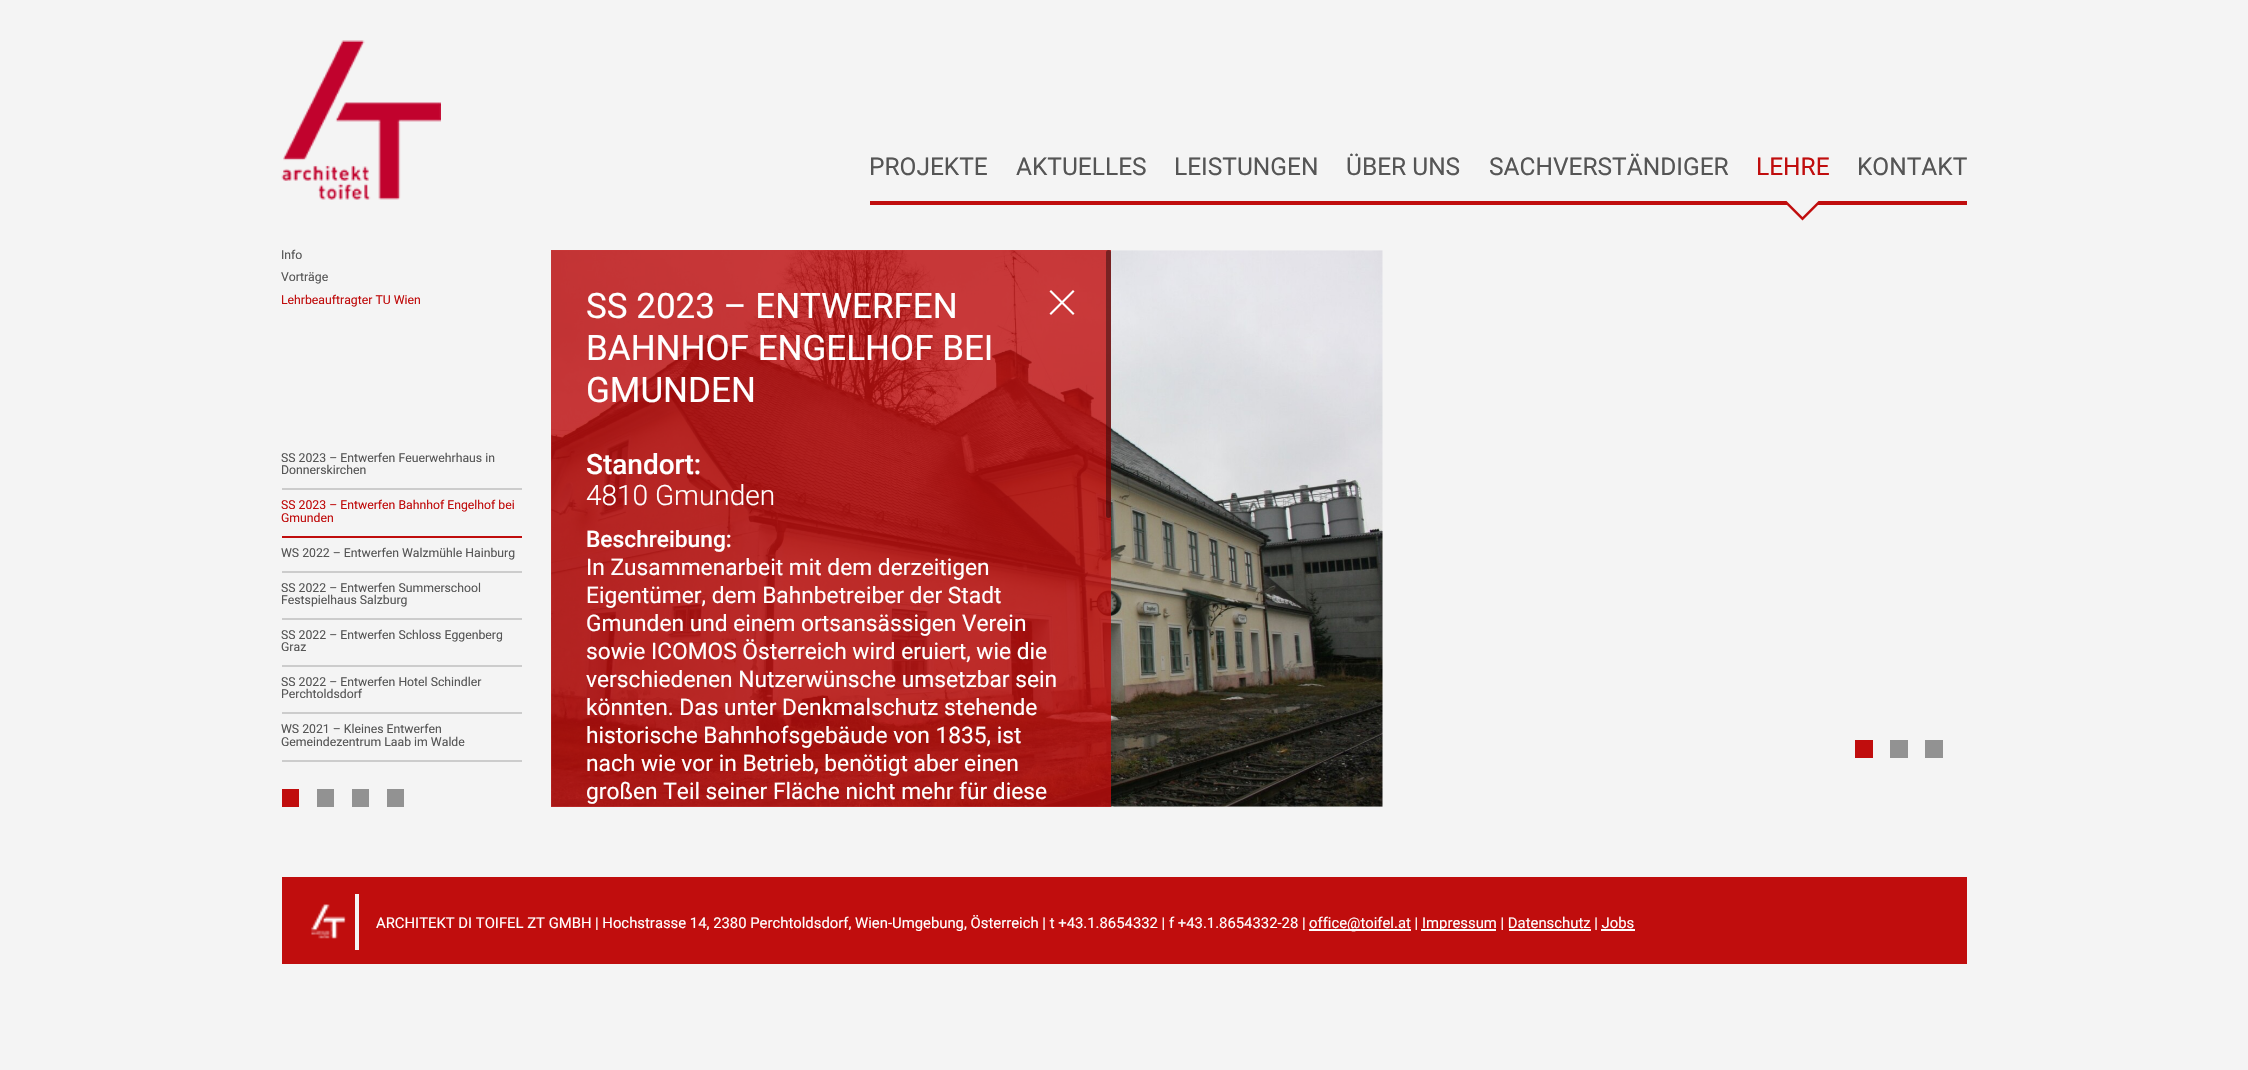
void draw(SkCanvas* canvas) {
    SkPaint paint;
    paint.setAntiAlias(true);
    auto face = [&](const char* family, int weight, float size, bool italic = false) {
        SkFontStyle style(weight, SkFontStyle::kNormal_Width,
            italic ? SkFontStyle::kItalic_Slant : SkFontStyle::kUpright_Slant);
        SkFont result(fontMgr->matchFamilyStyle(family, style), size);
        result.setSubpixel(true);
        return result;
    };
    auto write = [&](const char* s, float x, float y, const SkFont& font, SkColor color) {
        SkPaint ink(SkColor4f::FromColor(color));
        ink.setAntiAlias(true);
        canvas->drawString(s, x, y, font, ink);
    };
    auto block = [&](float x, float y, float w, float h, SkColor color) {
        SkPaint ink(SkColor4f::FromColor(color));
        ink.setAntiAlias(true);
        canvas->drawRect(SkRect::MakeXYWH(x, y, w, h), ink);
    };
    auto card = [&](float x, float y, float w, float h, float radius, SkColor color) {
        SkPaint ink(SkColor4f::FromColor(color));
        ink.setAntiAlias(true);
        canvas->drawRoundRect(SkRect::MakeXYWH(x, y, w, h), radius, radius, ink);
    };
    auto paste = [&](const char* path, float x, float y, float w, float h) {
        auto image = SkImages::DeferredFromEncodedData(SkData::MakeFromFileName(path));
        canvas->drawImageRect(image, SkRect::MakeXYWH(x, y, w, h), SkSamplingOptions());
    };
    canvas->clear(SkColorSetRGB(244, 244, 244));
    paste("pic1.png", 281, 40, 160, 160);
    block(870, 201, 1097, 4, SkColorSetRGB(192, 13, 13));
    auto kFont1 = face("Roboto", 400, 24.5f);
    write("PROJEKTE", 869, 175, kFont1, SkColorSetRGB(85, 85, 85));
    write("AKTUELLES", 1016, 175, kFont1, SkColorSetRGB(85, 85, 85));
    write("LEISTUNGEN", 1174, 175, kFont1, SkColorSetRGB(85, 85, 85));
    write("ÜBER UNS", 1346, 175, kFont1, SkColorSetRGB(85, 85, 85));
    write("SACHVERSTÄNDIGER", 1489, 175, kFont1, SkColorSetRGB(85, 85, 85));
    write("LEHRE", 1756, 175, kFont1, SkColorSetRGB(192, 13, 13));
    paint.setColor(SkColorSetRGB(192, 13, 13));
    canvas->drawPath(SkPathBuilder().moveTo(1785, 203).lineTo(1820, 203).lineTo(1802.5f, 220.5f).close().detach(), paint);
    paint.setColor(SkColorSetRGB(244, 244, 244));
    canvas->drawPath(SkPathBuilder().moveTo(1785, 199.5f).lineTo(1820, 199.5f).lineTo(1802.5f, 217).close().detach(), paint);
    write("KONTAKT", 1857, 175, kFont1, SkColorSetRGB(85, 85, 85));
    auto kFont2 = face("Roboto", 400, 12.25f);
    write("Info", 281, 259, kFont2, SkColorSetRGB(85, 85, 85));
    write("Vorträge", 281, 281, kFont2, SkColorSetRGB(85, 85, 85));
    write("Lehrbeauftragter TU Wien", 281, 304, kFont2, SkColorSetRGB(192, 13, 13));
    block(282, 488, 240, 2, SkColorSetRGB(204, 204, 204));
    write("SS 2023 – Entwerfen Feuerwehrhaus in", 281, 462, kFont2, SkColorSetRGB(85, 85, 85));
    write("Donnerskirchen", 281, 474, kFont2, SkColorSetRGB(85, 85, 85));
    block(282, 536, 240, 2, SkColorSetRGB(192, 13, 13));
    write("SS 2023 – Entwerfen Bahnhof Engelhof bei", 281, 509, kFont2, SkColorSetRGB(192, 13, 13));
    write("Gmunden", 281, 522, kFont2, SkColorSetRGB(192, 13, 13));
    block(282, 571, 240, 2, SkColorSetRGB(204, 204, 204));
    write("WS 2022 – Entwerfen Walzmühle Hainburg", 281, 557, kFont2, SkColorSetRGB(85, 85, 85));
    block(282, 618, 240, 2, SkColorSetRGB(204, 204, 204));
    write("SS 2022 – Entwerfen Summerschool", 281, 592, kFont2, SkColorSetRGB(85, 85, 85));
    write("Festspielhaus Salzburg", 281, 604, kFont2, SkColorSetRGB(85, 85, 85));
    block(282, 665, 240, 2, SkColorSetRGB(204, 204, 204));
    write("SS 2022 – Entwerfen Schloss Eggenberg", 281, 639, kFont2, SkColorSetRGB(85, 85, 85));
    write("Graz", 281, 651, kFont2, SkColorSetRGB(85, 85, 85));
    block(282, 712, 240, 2, SkColorSetRGB(204, 204, 204));
    write("SS 2022 – Entwerfen Hotel Schindler", 281, 686, kFont2, SkColorSetRGB(85, 85, 85));
    write("Perchtoldsdorf", 281, 698, kFont2, SkColorSetRGB(85, 85, 85));
    block(282, 760, 240, 2, SkColorSetRGB(204, 204, 204));
    write("WS 2021 – Kleines Entwerfen", 281, 733, kFont2, SkColorSetRGB(85, 85, 85));
    write("Gemeindezentrum Laab im Walde", 281, 746, kFont2, SkColorSetRGB(85, 85, 85));
    block(282, 789, 17, 18, SkColorSetRGB(192, 13, 13));
    block(317, 789, 17, 18, SkColorSetRGB(146, 146, 146));
    block(352, 789, 17, 18, SkColorSetRGB(146, 146, 146));
    block(387, 789, 17, 18, SkColorSetRGB(146, 146, 146));
    paste("pic2.png", 551, 250, 832, 557);
    block(1855, 740, 18, 18, SkColorSetRGB(192, 13, 13));
    block(1890, 740, 18, 18, SkColorSetRGB(146, 146, 146));
    block(1925, 740, 18, 18, SkColorSetRGB(146, 146, 146));
    block(551, 250, 560, 557, SkColorSetARGB(204, 192, 13, 13));
    auto kFont3 = face("Roboto", 400, 35);
    write("SS 2023 – ENTWERFEN", 586, 318, kFont3, SK_ColorWHITE);
    write("BAHNHOF ENGELHOF BEI", 586, 360, kFont3, SK_ColorWHITE);
    write("GMUNDEN", 586, 402, kFont3, SK_ColorWHITE);
    auto kFont4 = face("Roboto", 500, 28);
    write("Standort:", 586, 474, kFont4, SK_ColorWHITE);
    auto kFont5 = face("Roboto", 300, 28);
    write("4810 Gmunden", 586, 505, kFont5, SK_ColorWHITE);
    auto kFont6 = face("Roboto", 500, 22.75f);
    write("Beschreibung:", 586, 547, kFont6, SK_ColorWHITE);
    auto kFont7 = face("Roboto", 400, 22.75f);
    write("In Zusammenarbeit mit dem derzeitigen", 586, 575, kFont7, SK_ColorWHITE);
    write("Eigentümer, dem Bahnbetreiber der Stadt", 586, 603, kFont7, SK_ColorWHITE);
    write("Gmunden und einem ortsansässigen Verein", 586, 631, kFont7, SK_ColorWHITE);
    write("sowie ICOMOS Österreich wird eruiert, wie die", 586, 659, kFont7, SK_ColorWHITE);
    write("verschiedenen Nutzerwünsche umsetzbar sein", 586, 687, kFont7, SK_ColorWHITE);
    write("könnten. Das unter Denkmalschutz stehende", 586, 715, kFont7, SK_ColorWHITE);
    write("historische Bahnhofsgebäude von 1835, ist", 586, 743, kFont7, SK_ColorWHITE);
    write("nach wie vor in Betrieb, benötigt aber einen", 586, 771, kFont7, SK_ColorWHITE);
    write("großen Teil seiner Fläche nicht mehr für diese", 586, 799, kFont7, SK_ColorWHITE);
    card(1106, 250, 5, 268, 2.5f, SkColorSetARGB(102, 0, 0, 0));
    paint.setColor(SK_ColorWHITE);
    canvas->drawPath(SkPathBuilder().moveTo(1051, 290).lineTo(1074.5f, 313.5f).lineTo(1073, 315).lineTo(1049.5f, 291.5f).close().detach(), paint);
    canvas->drawPath(SkPathBuilder().moveTo(1073, 290).lineTo(1074.5f, 291.5f).lineTo(1051, 315).lineTo(1049.5f, 313.5f).close().detach(), paint);
    block(282, 877, 1685, 87, SkColorSetRGB(192, 13, 13));
    paste("pic3.png", 311, 904, 35, 35);
    block(355, 894, 4, 56, SkColorSetRGB(244, 244, 244));
    auto kFont8 = face("Roboto", 400, 14.85f);
    write("ARCHITEKT DI TOIFEL ZT GMBH", 376, 928, kFont8, SK_ColorWHITE);
    write("| Hochstrasse 14, 2380 Perchtoldsdorf, Wien-Umgebung, Österreich | t +43.1.8654332 | f +43.1.8654332-28 |", 595, 928, kFont8, SK_ColorWHITE);
    block(1309, 929, 102, 2, SK_ColorWHITE);
    write("office@toifel.at |", 1309, 928, kFont8, SK_ColorWHITE);
    block(1421, 929, 75, 2, SK_ColorWHITE);
    write("Impressum | Datenschutz | Jobs", 1422, 928, kFont8, SK_ColorWHITE);
    block(1509, 929, 82, 2, SK_ColorWHITE);
    block(1601, 929, 34, 2, SK_ColorWHITE);
}
